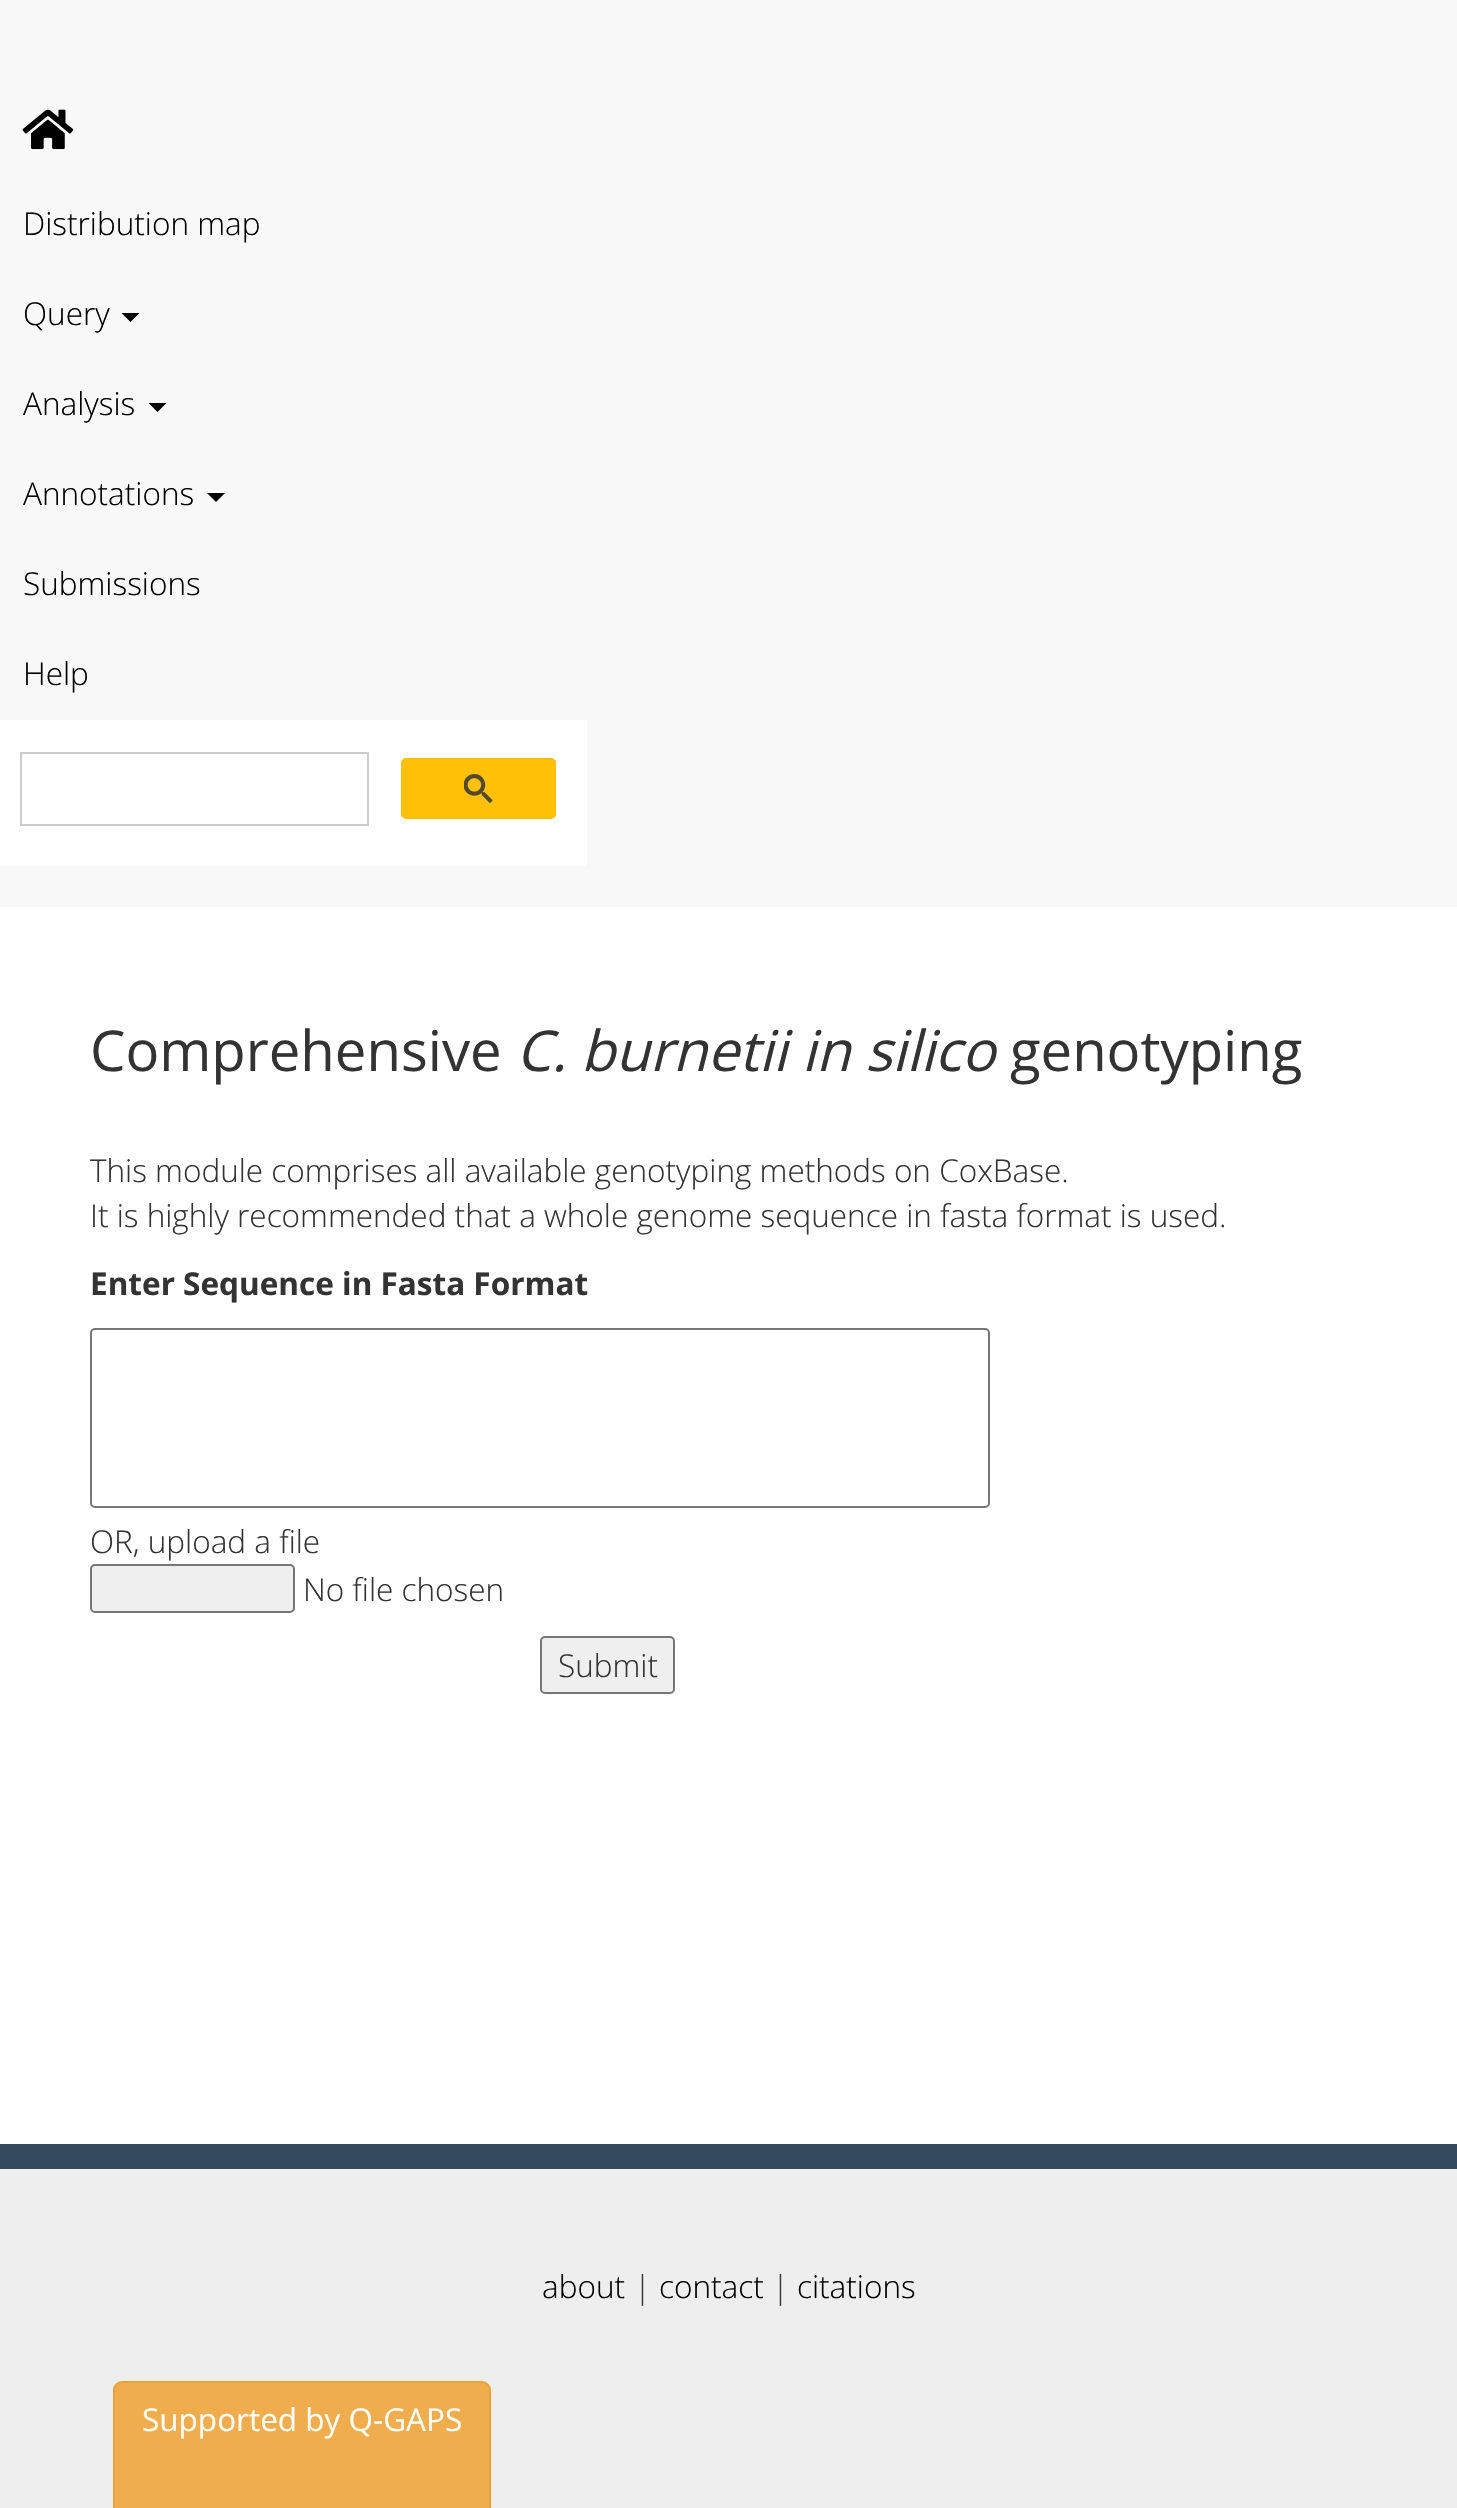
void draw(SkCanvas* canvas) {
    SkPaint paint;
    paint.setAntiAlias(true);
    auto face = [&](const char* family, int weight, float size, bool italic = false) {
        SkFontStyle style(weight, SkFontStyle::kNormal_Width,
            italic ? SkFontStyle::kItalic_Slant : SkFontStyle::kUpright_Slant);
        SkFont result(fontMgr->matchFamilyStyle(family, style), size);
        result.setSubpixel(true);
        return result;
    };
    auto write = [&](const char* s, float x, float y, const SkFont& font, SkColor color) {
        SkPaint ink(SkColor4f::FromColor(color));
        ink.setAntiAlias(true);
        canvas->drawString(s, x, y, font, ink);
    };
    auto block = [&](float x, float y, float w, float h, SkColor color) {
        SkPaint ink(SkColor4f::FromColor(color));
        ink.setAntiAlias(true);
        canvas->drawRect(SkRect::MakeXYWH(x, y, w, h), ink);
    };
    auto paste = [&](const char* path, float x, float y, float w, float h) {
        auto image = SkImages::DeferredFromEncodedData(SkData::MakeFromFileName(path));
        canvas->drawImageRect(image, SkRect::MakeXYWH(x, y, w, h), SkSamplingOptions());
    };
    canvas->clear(SK_ColorWHITE);
    block(0, 0, 1457, 907, SkColorSetRGB(248, 248, 248));
    paste("pic1.png", 22, 109, 52, 41);
    auto kFont1 = face("Open Sans", 300, 31.5f);
    write("Distribution map", 23, 235, kFont1, SK_ColorBLACK);
    write("Query", 23, 325, kFont1, SK_ColorBLACK);
    paint.setColor(SK_ColorBLACK);
    canvas->drawPath(SkPathBuilder().moveTo(121.5f, 313).lineTo(139.5f, 313).lineTo(130.5f, 322).close().detach(), paint);
    write("Analysis", 23, 415, kFont1, SK_ColorBLACK);
    canvas->drawPath(SkPathBuilder().moveTo(148.5f, 403).lineTo(166.5f, 403).lineTo(157.5f, 412).close().detach(), paint);
    write("Annotations", 23, 505, kFont1, SK_ColorBLACK);
    canvas->drawPath(SkPathBuilder().moveTo(207, 493).lineTo(225, 493).lineTo(216, 502).close().detach(), paint);
    write("Submissions", 23, 595, kFont1, SK_ColorBLACK);
    write("Help", 23, 685, kFont1, SK_ColorBLACK);
    block(0, 720, 587, 146, SK_ColorWHITE);
    paint.setStyle(SkPaint::kStroke_Style);
    paint.setStrokeWidth(2);
    paint.setColor(SkColorSetRGB(204, 204, 204));
    canvas->drawRect(SkRect::MakeXYWH(21, 753, 347, 72), paint);
    paint.setStyle(SkPaint::kFill_Style);
    paint.setColor(SkColorSetRGB(255, 193, 7));
    canvas->drawRoundRect(SkRect::MakeXYWH(402, 759, 153, 59), 4, 4, paint);
    paint.setStyle(SkPaint::kStroke_Style);
    canvas->drawRoundRect(SkRect::MakeXYWH(402, 759, 153, 59), 4, 4, paint);
    paste("pic2.png", 464, 774, 29, 29);
    auto kFont2 = face("Open Sans", 400, 56.25f);
    write("Comprehensive", 90, 1071, kFont2, SkColorSetRGB(51, 51, 51));
    auto kFont3 = face("Open Sans", 400, 56.25f, true);
    write("C. burnetii in silico", 516, 1071, kFont3, SkColorSetRGB(51, 51, 51));
    write("genotyping", 1010, 1071, kFont2, SkColorSetRGB(51, 51, 51));
    write("This module comprises all available genotyping methods on CoxBase.", 90, 1182, kFont1, SkColorSetRGB(51, 51, 51));
    write("It is highly recommended that a whole genome sequence in fasta format is used.", 90, 1227, kFont1, SkColorSetRGB(51, 51, 51));
    auto kFont4 = face("Open Sans", 700, 31.5f);
    write("Enter Sequence in Fasta Format", 90, 1295, kFont4, SkColorSetRGB(51, 51, 51));
    paint.setColor(SkColorSetRGB(118, 118, 118));
    canvas->drawRoundRect(SkRect::MakeXYWH(91, 1329, 898, 178), 4, 4, paint);
    write("OR, upload a file", 90, 1553, kFont1, SkColorSetRGB(51, 51, 51));
    paint.setStyle(SkPaint::kFill_Style);
    paint.setColor(SkColorSetRGB(239, 239, 239));
    canvas->drawRoundRect(SkRect::MakeXYWH(91, 1565, 203, 47), 4, 4, paint);
    paint.setStyle(SkPaint::kStroke_Style);
    paint.setColor(SkColorSetRGB(118, 118, 118));
    canvas->drawRoundRect(SkRect::MakeXYWH(91, 1565, 203, 47), 4, 4, paint);
    write("No file chosen", 303, 1601, kFont1, SkColorSetRGB(51, 51, 51));
    paint.setStyle(SkPaint::kFill_Style);
    paint.setColor(SkColorSetRGB(239, 239, 239));
    canvas->drawRoundRect(SkRect::MakeXYWH(541, 1637, 133, 56), 4, 4, paint);
    paint.setStyle(SkPaint::kStroke_Style);
    paint.setColor(SkColorSetRGB(118, 118, 118));
    canvas->drawRoundRect(SkRect::MakeXYWH(541, 1637, 133, 56), 4, 4, paint);
    write("Submit", 558, 1677, kFont1, SkColorSetRGB(51, 51, 51));
    block(0, 2144, 1457, 25, SkColorSetRGB(52, 73, 94));
    block(0, 2169, 1457, 339, SkColorSetRGB(238, 238, 238));
    write("about", 542, 2298, kFont1, SK_ColorBLACK);
    write("|", 634, 2298, kFont1, SkColorSetRGB(51, 51, 51));
    write("contact", 659, 2298, kFont1, SK_ColorBLACK);
    write("|", 772, 2298, kFont1, SkColorSetRGB(51, 51, 51));
    write("citations", 797, 2298, kFont1, SK_ColorBLACK);
    paint.setStyle(SkPaint::kFill_Style);
    paint.setColor(SkColorSetRGB(240, 173, 78));
    canvas->drawRoundRect(SkRect::MakeXYWH(114, 2382, 376, 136), 8, 8, paint);
    paint.setStyle(SkPaint::kStroke_Style);
    paint.setColor(SkColorSetRGB(238, 162, 54));
    canvas->drawRoundRect(SkRect::MakeXYWH(114, 2382, 376, 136), 8, 8, paint);
    auto kFont5 = face("Open Sans", 400, 31.5f);
    write("Supported by Q-GAPS", 142, 2431, kFont5, SK_ColorWHITE);
}
